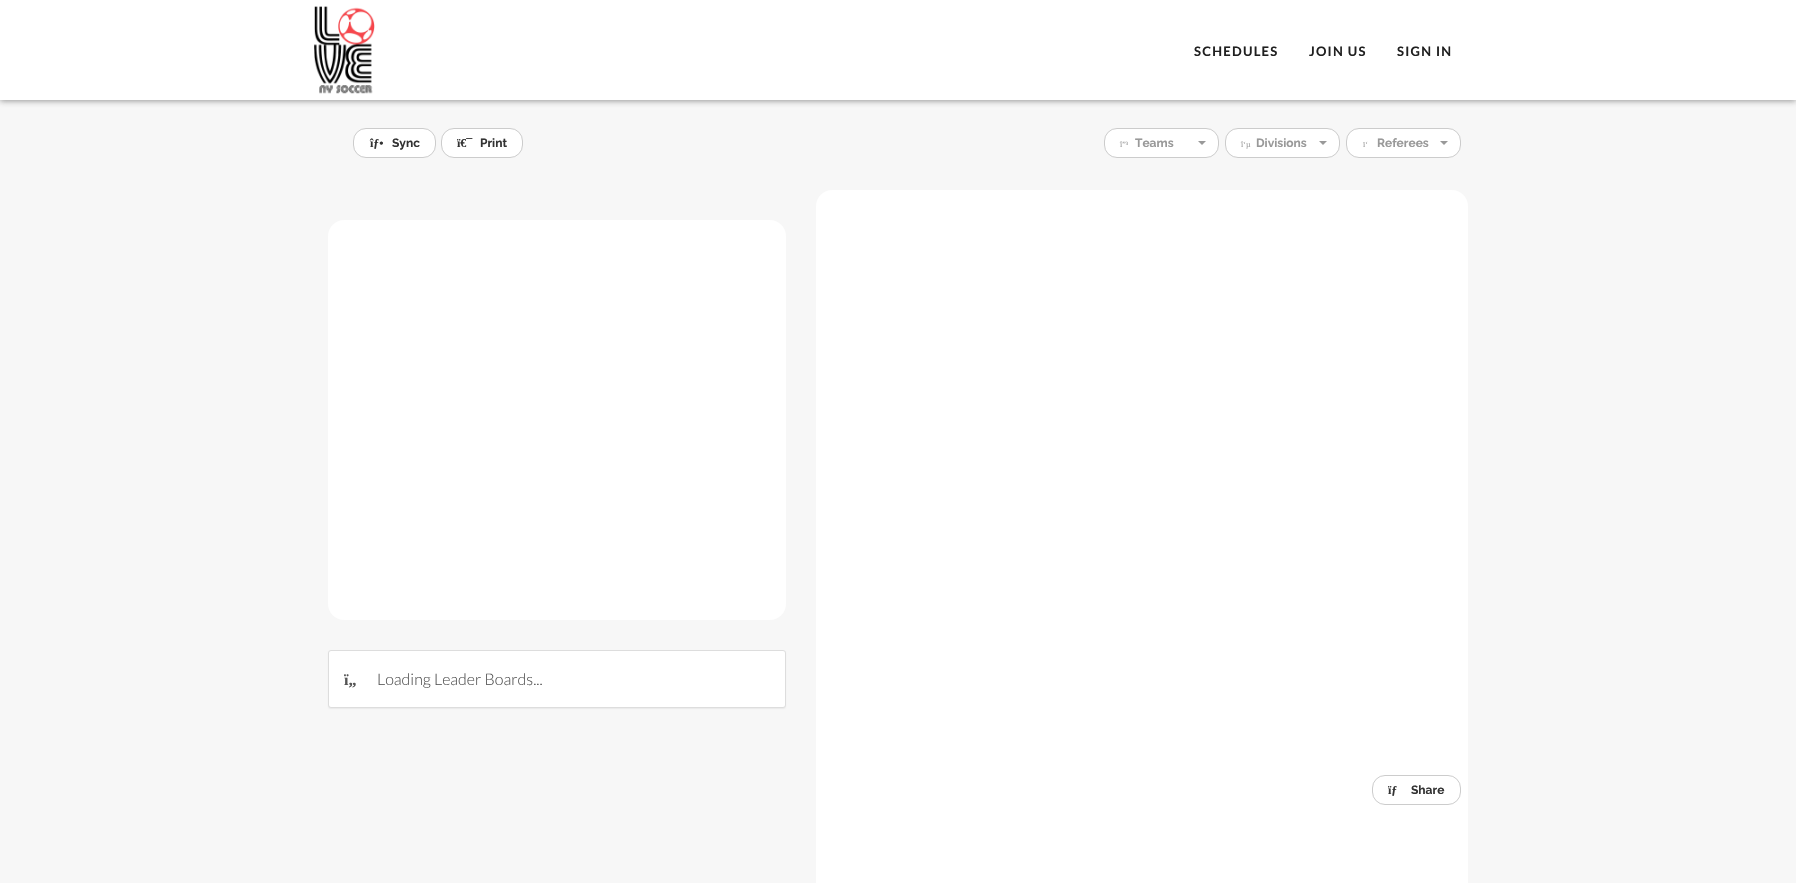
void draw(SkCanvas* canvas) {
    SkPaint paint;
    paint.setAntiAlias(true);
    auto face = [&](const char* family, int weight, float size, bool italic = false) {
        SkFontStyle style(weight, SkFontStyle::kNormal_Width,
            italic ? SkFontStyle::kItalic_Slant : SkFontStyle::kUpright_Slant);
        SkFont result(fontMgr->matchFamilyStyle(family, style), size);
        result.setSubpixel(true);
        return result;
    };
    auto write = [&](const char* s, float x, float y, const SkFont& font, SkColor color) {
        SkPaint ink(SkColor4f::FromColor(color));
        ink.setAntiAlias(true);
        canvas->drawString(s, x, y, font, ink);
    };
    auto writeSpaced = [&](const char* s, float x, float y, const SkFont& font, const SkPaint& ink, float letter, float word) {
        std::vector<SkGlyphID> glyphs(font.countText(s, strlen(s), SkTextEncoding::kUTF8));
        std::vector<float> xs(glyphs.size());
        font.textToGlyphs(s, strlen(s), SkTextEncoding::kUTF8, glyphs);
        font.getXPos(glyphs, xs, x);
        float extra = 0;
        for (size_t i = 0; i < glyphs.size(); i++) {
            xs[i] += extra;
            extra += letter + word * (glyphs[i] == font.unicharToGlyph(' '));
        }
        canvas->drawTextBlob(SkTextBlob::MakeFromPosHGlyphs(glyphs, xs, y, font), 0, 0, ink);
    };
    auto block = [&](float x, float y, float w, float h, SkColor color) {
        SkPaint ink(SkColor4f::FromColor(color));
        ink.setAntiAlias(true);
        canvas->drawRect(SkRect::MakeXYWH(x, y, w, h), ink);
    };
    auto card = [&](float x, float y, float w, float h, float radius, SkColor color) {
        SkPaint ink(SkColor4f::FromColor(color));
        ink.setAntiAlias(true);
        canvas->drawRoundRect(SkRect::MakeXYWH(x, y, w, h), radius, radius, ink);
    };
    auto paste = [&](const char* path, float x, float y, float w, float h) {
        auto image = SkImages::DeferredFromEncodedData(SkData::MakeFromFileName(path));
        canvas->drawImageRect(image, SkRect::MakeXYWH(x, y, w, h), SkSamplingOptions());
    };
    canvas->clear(SkColorSetRGB(247, 247, 247));
    paint.setColor(SkColorSetARGB(128, 50, 50, 50));
    paint.setMaskFilter(SkMaskFilter::MakeBlur(kNormal_SkBlurStyle, 3));
    canvas->drawRect(SkRect::MakeXYWH(0, 1, 1796, 100), paint);
    paint.setMaskFilter(nullptr);
    block(0, 0, 1796, 100, SK_ColorWHITE);
    paste("pic1.png", 314, 6, 61, 88);
    auto kFont1 = face("Lato", 700, 13);
    paint.setColor(SkColorSetRGB(32, 32, 32));
    writeSpaced("SCHEDULES", 1194, 56, kFont1, paint, 1.25f, 0);
    writeSpaced("JOIN US", 1309, 56, kFont1, paint, 1.25f, 0);
    writeSpaced("SIGN IN", 1397, 56, kFont1, paint, 1.25f, 0);
    paint.setColor(SK_ColorWHITE);
    canvas->drawRoundRect(SkRect::MakeXYWH(353.5f, 128.5f, 82, 29), 12.5f, 12.5f, paint);
    paint.setStyle(SkPaint::kStroke_Style);
    paint.setStrokeWidth(1);
    paint.setColor(SkColorSetRGB(204, 204, 204));
    canvas->drawRoundRect(SkRect::MakeXYWH(353.5f, 128.5f, 82, 29), 12.5f, 12.5f, paint);
    auto kFont2 = face("Liberation Serif", 700, 12);
    write("îƒ•", 370, 147, kFont2, SkColorSetRGB(51, 51, 51));
    auto kFont3 = face("Raleway", 700, 12);
    write("Sync", 392, 147, kFont3, SkColorSetRGB(51, 51, 51));
    paint.setStyle(SkPaint::kFill_Style);
    paint.setColor(SK_ColorWHITE);
    canvas->drawRoundRect(SkRect::MakeXYWH(441.5f, 128.5f, 81, 29), 12.5f, 12.5f, paint);
    paint.setStyle(SkPaint::kStroke_Style);
    paint.setColor(SkColorSetRGB(204, 204, 204));
    canvas->drawRoundRect(SkRect::MakeXYWH(441.5f, 128.5f, 81, 29), 12.5f, 12.5f, paint);
    write("ï€¯", 457, 147, kFont2, SkColorSetRGB(51, 51, 51));
    write("Print", 480, 147, kFont3, SkColorSetRGB(51, 51, 51));
    paint.setStyle(SkPaint::kFill_Style);
    paint.setColor(SK_ColorWHITE);
    canvas->drawRoundRect(SkRect::MakeXYWH(1104.5f, 128.5f, 114, 29), 12.5f, 12.5f, paint);
    paint.setStyle(SkPaint::kStroke_Style);
    paint.setColor(SkColorSetRGB(204, 204, 204));
    canvas->drawRoundRect(SkRect::MakeXYWH(1104.5f, 128.5f, 114, 29), 12.5f, 12.5f, paint);
    auto kFont4 = face("Liberation Serif", 400, 8);
    write("î”³", 1120, 147, kFont4, SkColorSetRGB(153, 153, 153));
    write("Teams", 1135, 147, kFont3, SkColorSetRGB(153, 153, 153));
    paint.setStyle(SkPaint::kFill_Style);
    paint.setColor(SkColorSetRGB(153, 153, 153));
    canvas->drawPath(SkPathBuilder().moveTo(1198, 141).lineTo(1206, 141).lineTo(1202, 145).close().detach(), paint);
    paint.setColor(SK_ColorWHITE);
    canvas->drawRoundRect(SkRect::MakeXYWH(1225.5f, 128.5f, 114, 29), 12.5f, 12.5f, paint);
    paint.setStyle(SkPaint::kStroke_Style);
    paint.setColor(SkColorSetRGB(204, 204, 204));
    canvas->drawRoundRect(SkRect::MakeXYWH(1225.5f, 128.5f, 114, 29), 12.5f, 12.5f, paint);
    write("î‘µ", 1241, 147, kFont4, SkColorSetRGB(153, 153, 153));
    write("Divisions", 1256, 147, kFont3, SkColorSetRGB(153, 153, 153));
    paint.setStyle(SkPaint::kFill_Style);
    paint.setColor(SkColorSetRGB(153, 153, 153));
    canvas->drawPath(SkPathBuilder().moveTo(1319, 141).lineTo(1327, 141).lineTo(1323, 145).close().detach(), paint);
    paint.setColor(SK_ColorWHITE);
    canvas->drawRoundRect(SkRect::MakeXYWH(1346.5f, 128.5f, 114, 29), 12.5f, 12.5f, paint);
    paint.setStyle(SkPaint::kStroke_Style);
    paint.setColor(SkColorSetRGB(204, 204, 204));
    canvas->drawRoundRect(SkRect::MakeXYWH(1346.5f, 128.5f, 114, 29), 12.5f, 12.5f, paint);
    write("ï‘", 1363, 147, kFont4, SkColorSetRGB(153, 153, 153));
    write("Referees", 1377, 147, kFont3, SkColorSetRGB(153, 153, 153));
    paint.setStyle(SkPaint::kFill_Style);
    paint.setColor(SkColorSetRGB(153, 153, 153));
    canvas->drawPath(SkPathBuilder().moveTo(1440, 141).lineTo(1448, 141).lineTo(1444, 145).close().detach(), paint);
    card(328, 220, 458, 400, 16, SK_ColorWHITE);
    paint.setColor(SkColorSetARGB(13, 0, 0, 0));
    paint.setMaskFilter(SkMaskFilter::MakeBlur(kNormal_SkBlurStyle, 0.5f));
    canvas->drawRoundRect(SkRect::MakeXYWH(328, 651, 458, 58), 3, 3, paint);
    paint.setMaskFilter(nullptr);
    paint.setColor(SK_ColorWHITE);
    canvas->drawRoundRect(SkRect::MakeXYWH(328.5f, 650.5f, 457, 57), 2.5f, 2.5f, paint);
    paint.setStyle(SkPaint::kStroke_Style);
    paint.setColor(SkColorSetRGB(221, 221, 221));
    canvas->drawRoundRect(SkRect::MakeXYWH(328.5f, 650.5f, 457, 57), 2.5f, 2.5f, paint);
    auto kFont5 = face("Liberation Serif", 700, 16);
    write("ï„", 344, 685, kFont5, SkColorSetRGB(85, 85, 85));
    auto kFont6 = face("Lato", 300, 16);
    write("Loading Leader Boards...", 377, 685, kFont6, SkColorSetRGB(85, 85, 85));
    card(816, 190, 652, 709, 16, SK_ColorWHITE);
    paint.setColor(SkColorSetRGB(204, 204, 204));
    canvas->drawRoundRect(SkRect::MakeXYWH(1372.5f, 775.5f, 88, 29), 12.5f, 12.5f, paint);
    write("ïƒ", 1388, 794, kFont2, SkColorSetRGB(51, 51, 51));
    write("Share", 1411, 794, kFont3, SkColorSetRGB(51, 51, 51));
}
